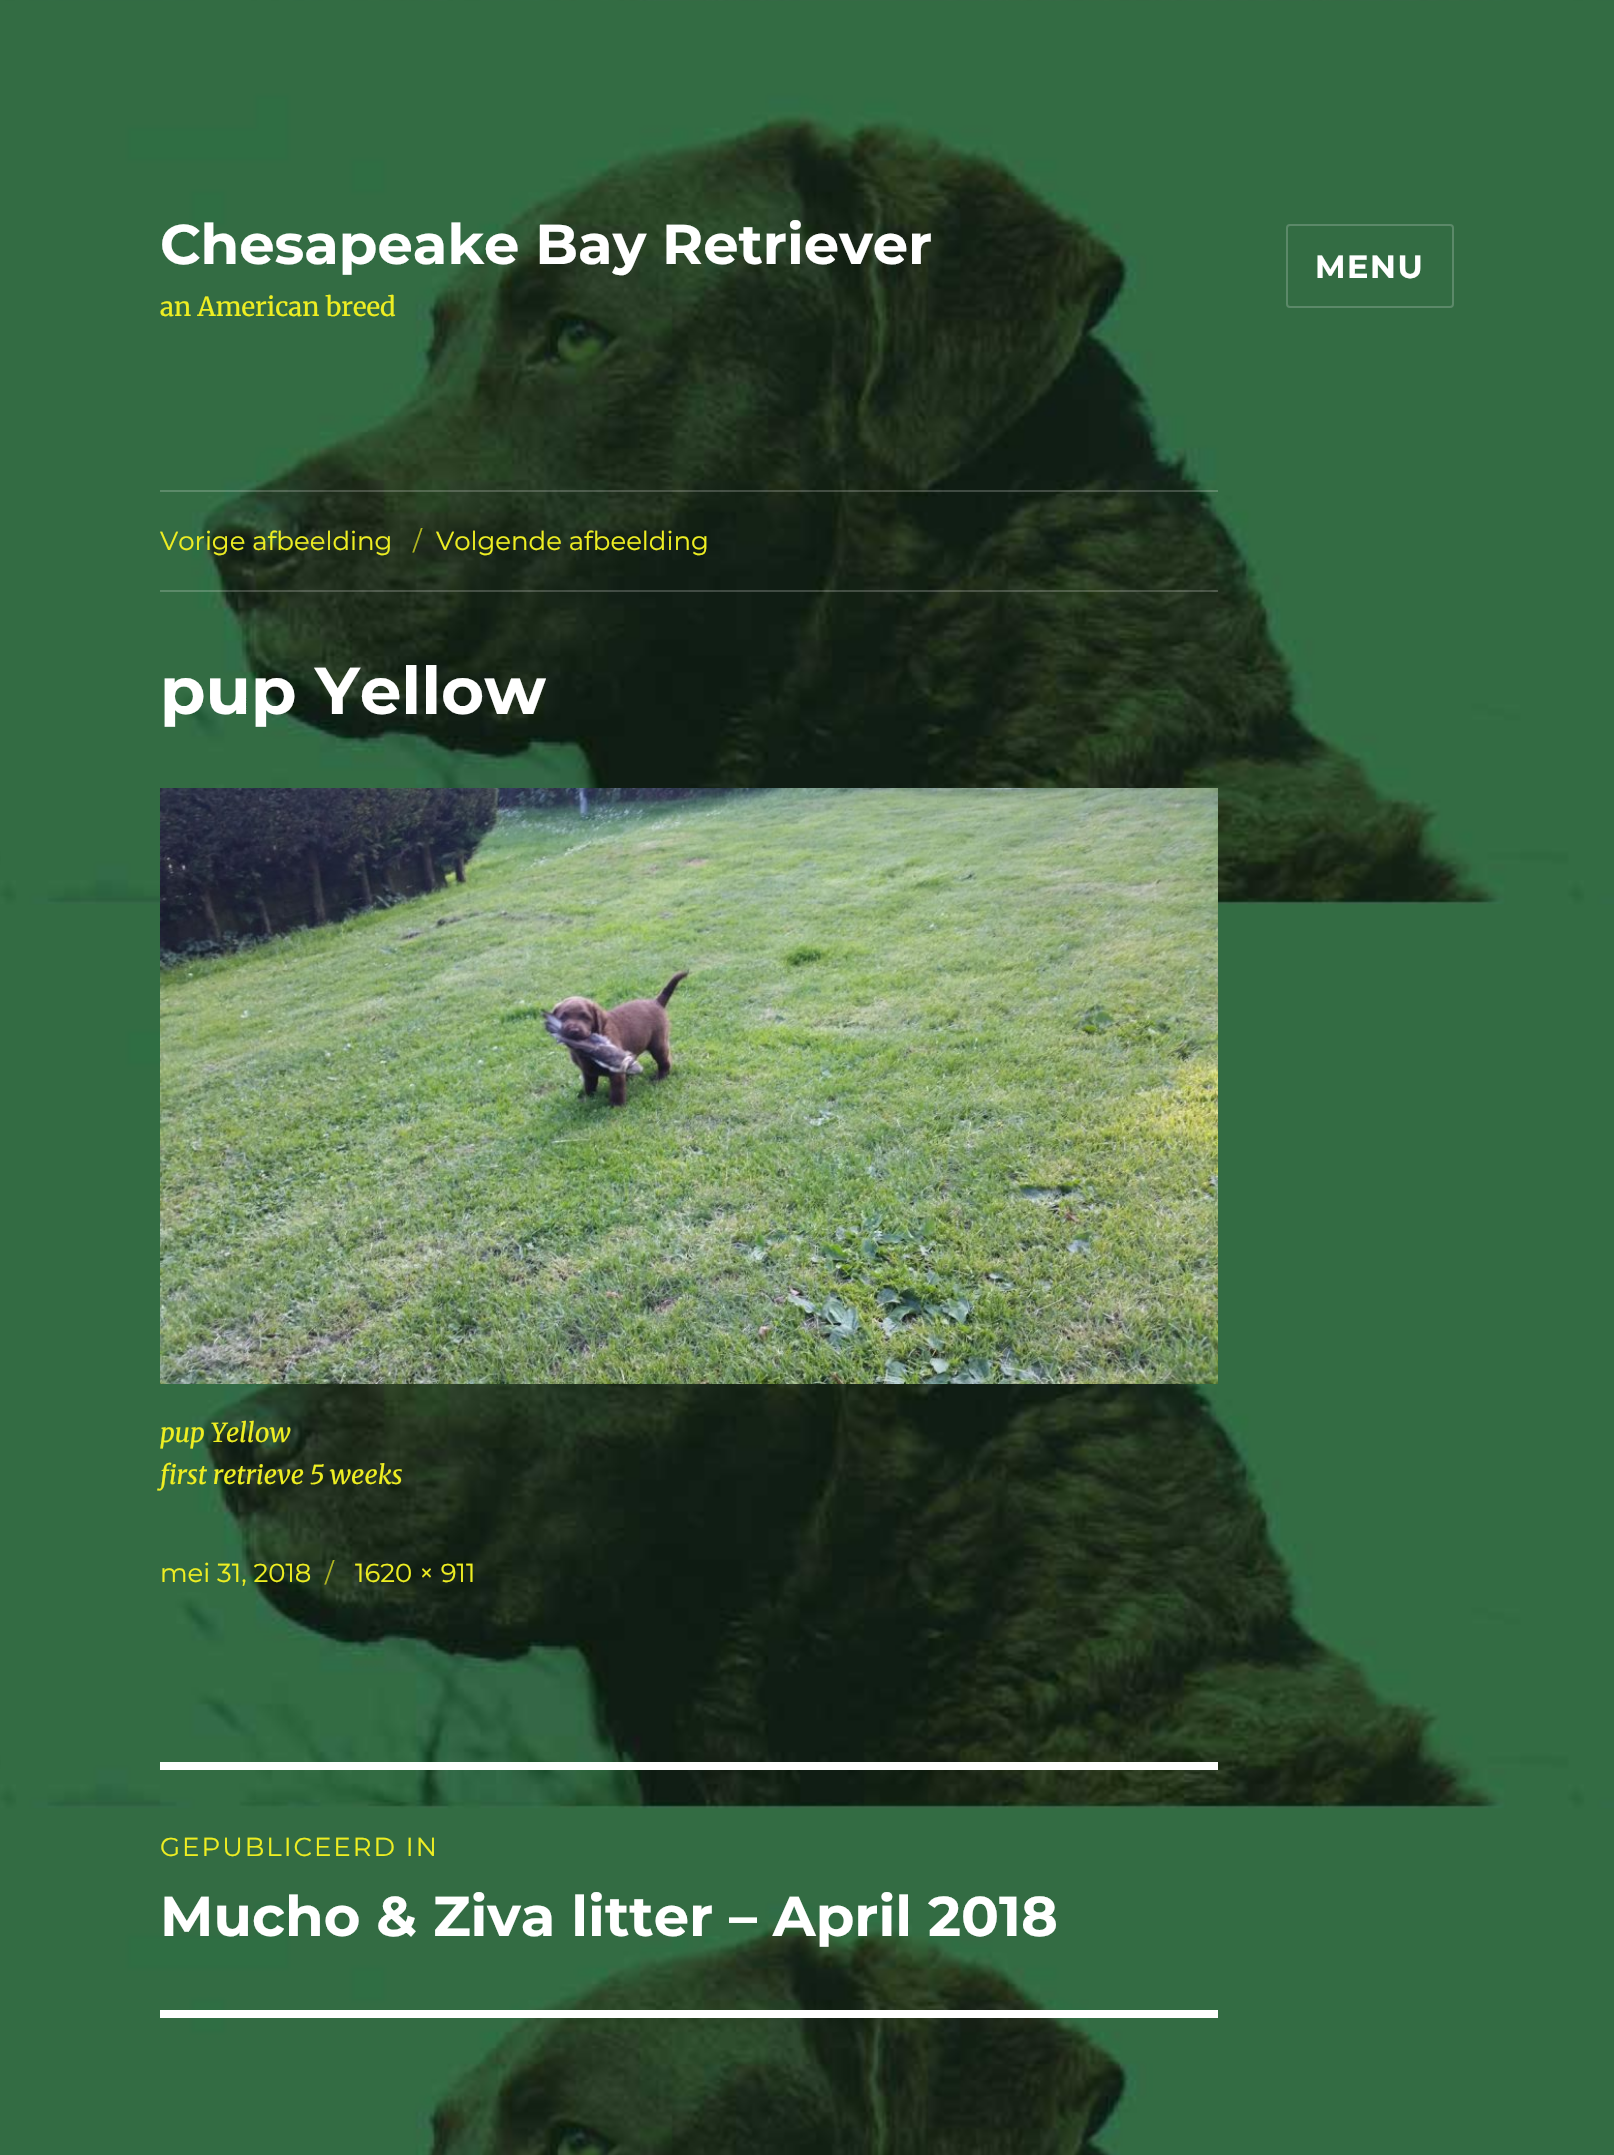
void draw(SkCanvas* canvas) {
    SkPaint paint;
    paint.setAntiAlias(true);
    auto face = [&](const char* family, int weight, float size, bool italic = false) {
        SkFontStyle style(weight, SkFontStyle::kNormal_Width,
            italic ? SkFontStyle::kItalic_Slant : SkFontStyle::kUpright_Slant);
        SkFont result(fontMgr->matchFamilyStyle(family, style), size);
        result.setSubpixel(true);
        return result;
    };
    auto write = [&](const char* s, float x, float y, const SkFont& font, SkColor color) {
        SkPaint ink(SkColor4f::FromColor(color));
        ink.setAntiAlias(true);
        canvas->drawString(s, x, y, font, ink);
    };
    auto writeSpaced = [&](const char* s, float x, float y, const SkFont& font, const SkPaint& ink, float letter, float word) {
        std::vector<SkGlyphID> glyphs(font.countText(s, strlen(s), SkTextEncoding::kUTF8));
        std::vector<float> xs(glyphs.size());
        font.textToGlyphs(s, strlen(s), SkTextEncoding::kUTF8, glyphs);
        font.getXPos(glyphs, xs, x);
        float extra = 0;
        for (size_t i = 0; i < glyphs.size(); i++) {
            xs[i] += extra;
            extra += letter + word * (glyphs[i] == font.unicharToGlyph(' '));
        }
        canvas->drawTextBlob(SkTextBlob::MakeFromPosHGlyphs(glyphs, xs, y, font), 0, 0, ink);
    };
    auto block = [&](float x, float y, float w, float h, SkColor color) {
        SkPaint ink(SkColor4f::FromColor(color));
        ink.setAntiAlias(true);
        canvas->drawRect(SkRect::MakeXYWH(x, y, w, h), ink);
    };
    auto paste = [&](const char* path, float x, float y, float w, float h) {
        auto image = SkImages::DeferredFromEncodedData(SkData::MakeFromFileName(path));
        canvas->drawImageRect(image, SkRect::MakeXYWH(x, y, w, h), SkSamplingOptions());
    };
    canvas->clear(SK_ColorWHITE);
    paste("pic1.png", 0, 0, 1614, 2155);
    auto kFont1 = face("Montserrat", 700, 56);
    write("Chesapeake Bay Retriever", 160, 264, kFont1, SK_ColorWHITE);
    auto kFont2 = face("Merriweather", 400, 26);
    write("an American breed", 160, 316, kFont2, SkColorSetRGB(238, 238, 34));
    paint.setStyle(SkPaint::kStroke_Style);
    paint.setStrokeWidth(2);
    paint.setColor(SkColorSetRGB(92, 137, 105));
    canvas->drawRoundRect(SkRect::MakeXYWH(1287, 225, 166, 82), 3, 3, paint);
    auto kFont3 = face("Montserrat", 700, 32);
    paint.setStyle(SkPaint::kFill_Style);
    paint.setColor(SK_ColorWHITE);
    writeSpaced("MENU", 1315, 278, kFont3, paint, 1.5f, 0);
    block(160, 490, 1058, 2, SkColorSetARGB(51, 255, 255, 255));
    block(160, 590, 1058, 2, SkColorSetARGB(51, 255, 255, 255));
    auto kFont4 = face("Montserrat", 400, 26);
    write("Vorige afbeelding", 160, 550, kFont4, SkColorSetRGB(238, 238, 34));
    write("/", 413, 550, kFont4, SkColorSetRGB(176, 181, 32));
    write("Volgende afbeelding", 436, 550, kFont4, SkColorSetRGB(238, 238, 34));
    auto kFont5 = face("Montserrat", 700, 66);
    write("pup Yellow", 160, 714, kFont5, SK_ColorWHITE);
    paste("pic2.png", 160, 788, 1058, 596);
    auto kFont6 = face("Merriweather", 400, 26, true);
    write("pup Yellow", 160, 1442, kFont6, SkColorSetRGB(238, 238, 34));
    write("first retrieve 5 weeks", 160, 1484, kFont6, SkColorSetRGB(238, 238, 34));
    write("mei 31, 2018", 160, 1582, kFont4, SkColorSetRGB(238, 238, 34));
    write("/", 325, 1582, kFont4, SkColorSetRGB(176, 181, 32));
    write("1620 × 911", 355, 1582, kFont4, SkColorSetRGB(238, 238, 34));
    block(160, 1762, 1058, 8, SK_ColorWHITE);
    block(160, 2010, 1058, 8, SK_ColorWHITE);
    paint.setColor(SkColorSetRGB(238, 238, 34));
    writeSpaced("GEPUBLICEERD IN", 160, 1856, kFont4, paint, 2, 0);
    write("Mucho & Ziva litter – April 2018", 160, 1936, kFont1, SK_ColorWHITE);
}
